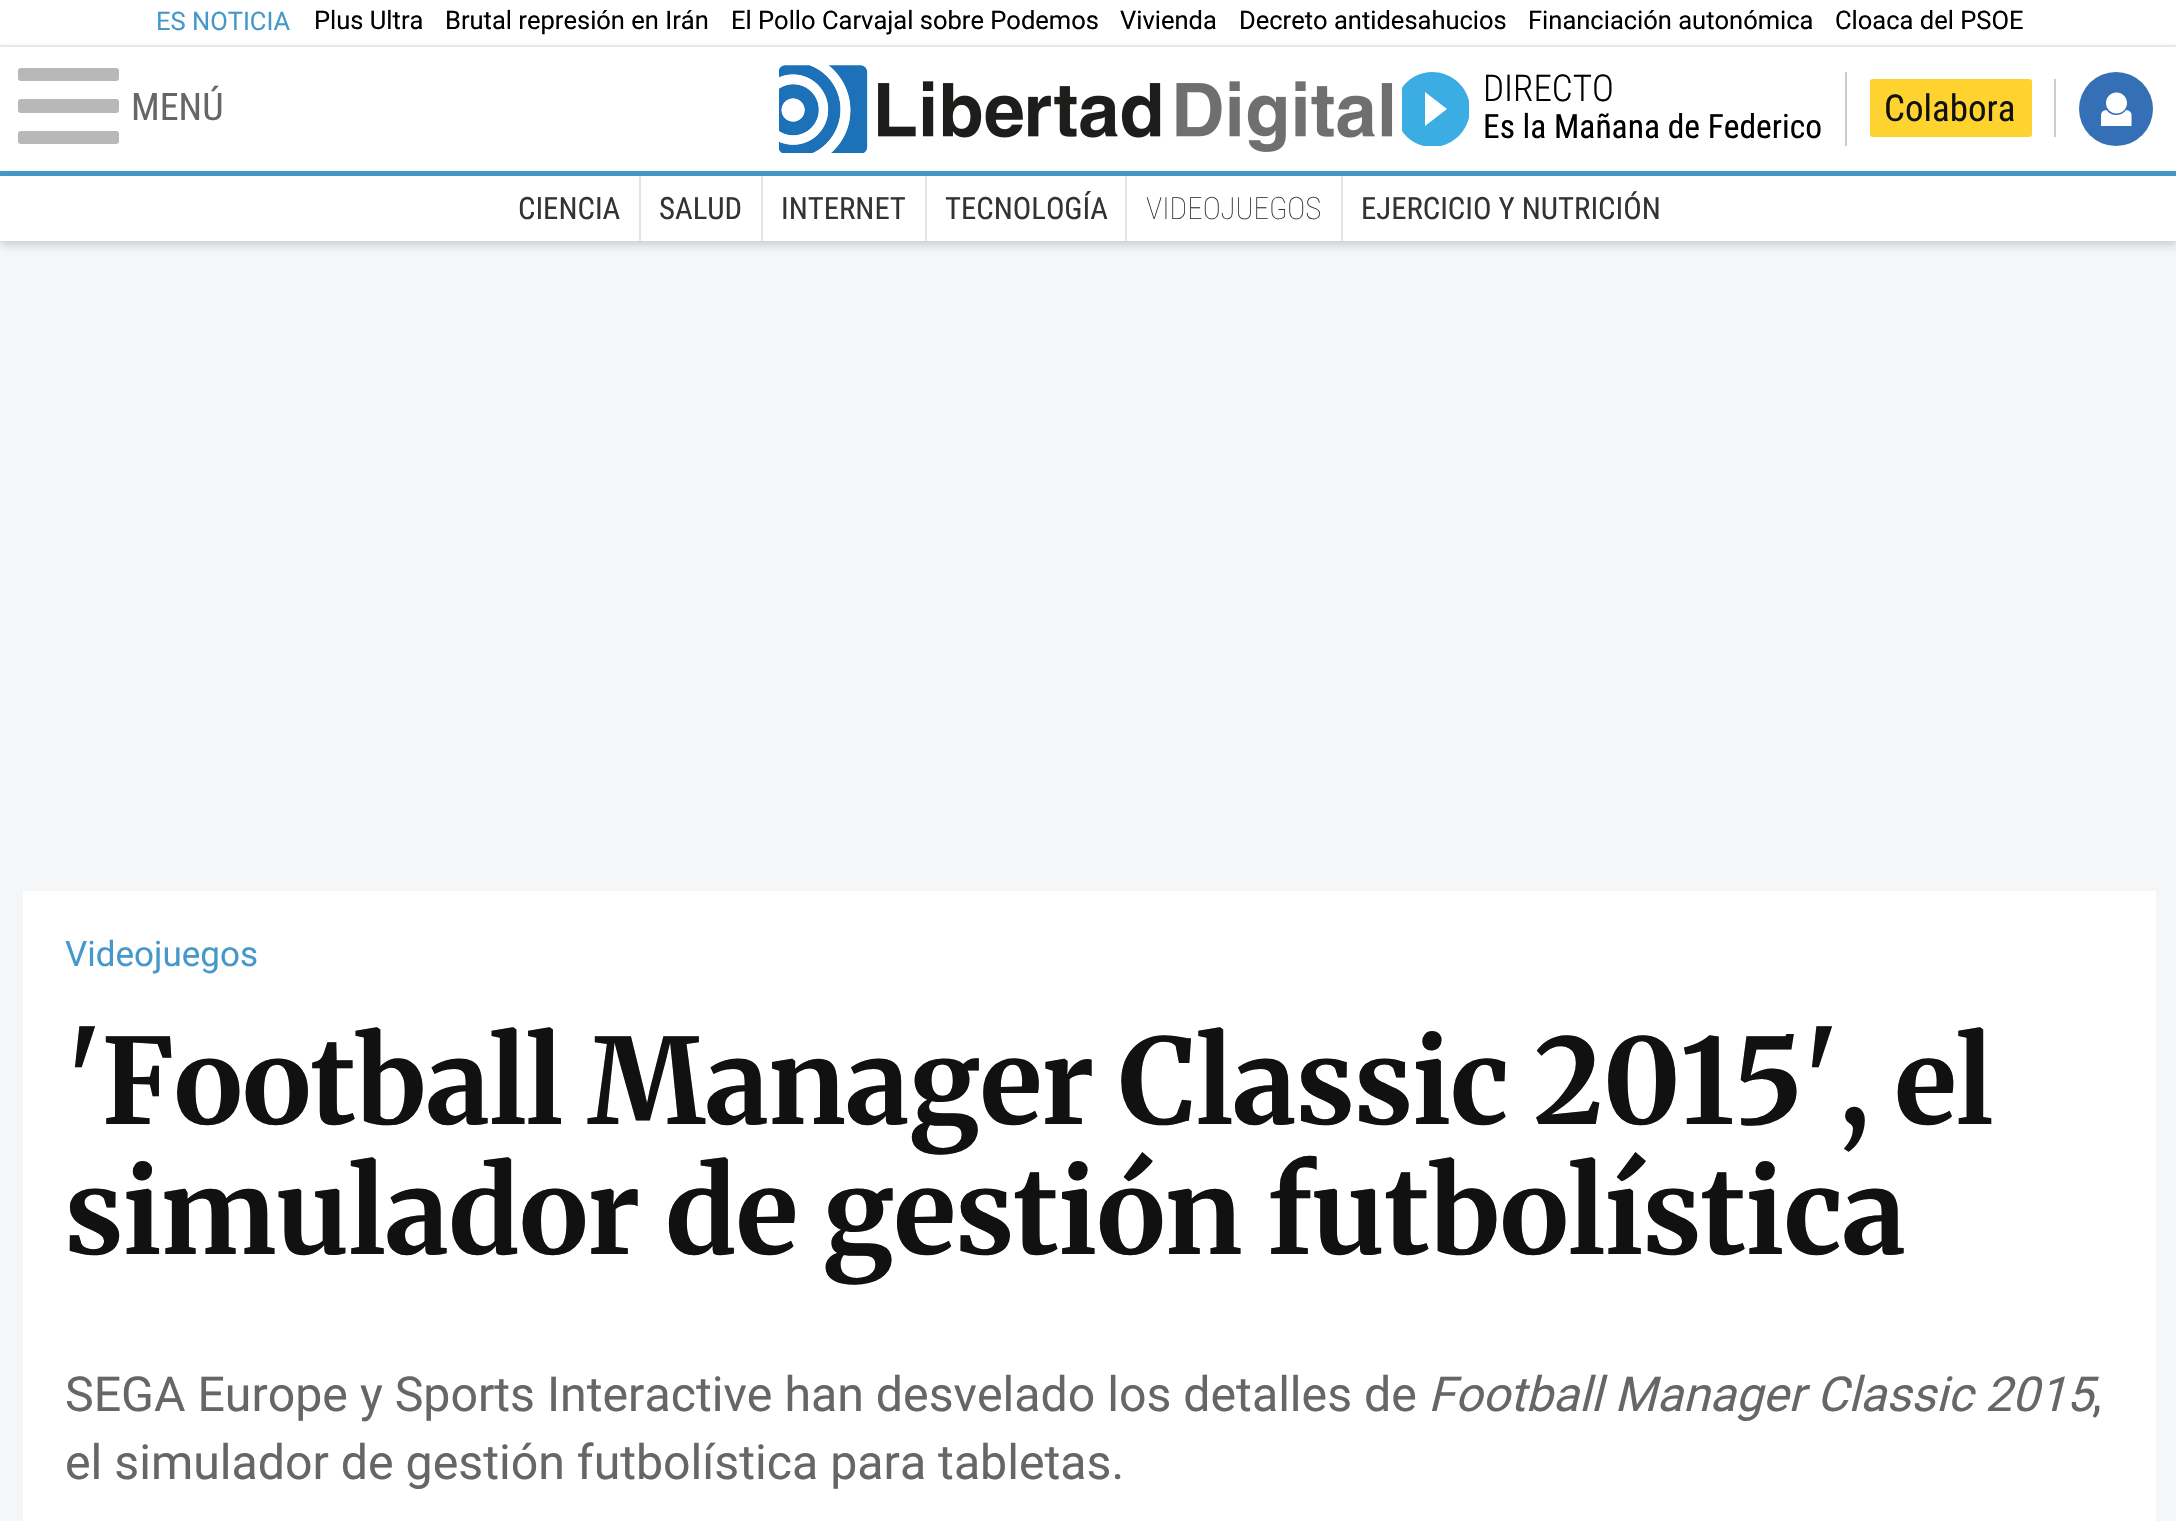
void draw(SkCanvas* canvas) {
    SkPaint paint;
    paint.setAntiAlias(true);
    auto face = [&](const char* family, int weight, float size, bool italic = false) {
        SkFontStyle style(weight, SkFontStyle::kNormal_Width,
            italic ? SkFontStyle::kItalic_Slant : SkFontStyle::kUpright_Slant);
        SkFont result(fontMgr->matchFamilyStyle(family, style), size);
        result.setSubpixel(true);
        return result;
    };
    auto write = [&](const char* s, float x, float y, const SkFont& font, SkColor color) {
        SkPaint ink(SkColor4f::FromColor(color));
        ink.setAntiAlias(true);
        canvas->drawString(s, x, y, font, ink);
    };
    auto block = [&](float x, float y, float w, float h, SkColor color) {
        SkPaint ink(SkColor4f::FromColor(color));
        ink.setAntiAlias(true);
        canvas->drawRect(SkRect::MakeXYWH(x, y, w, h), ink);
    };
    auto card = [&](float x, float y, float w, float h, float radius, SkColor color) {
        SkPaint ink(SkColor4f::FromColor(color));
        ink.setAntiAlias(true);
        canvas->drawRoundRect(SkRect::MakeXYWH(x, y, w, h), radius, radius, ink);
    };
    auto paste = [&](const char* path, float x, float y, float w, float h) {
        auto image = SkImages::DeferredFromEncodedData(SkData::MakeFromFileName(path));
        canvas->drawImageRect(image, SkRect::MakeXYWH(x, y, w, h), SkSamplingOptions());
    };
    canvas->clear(SkColorSetRGB(245, 246, 248));
    block(0, 0, 2176, 45, SK_ColorWHITE);
    block(0, 45, 2176, 2, SkColorSetRGB(236, 240, 241));
    auto kFont1 = face("Roboto", 400, 25.5f);
    write("ES NOTICIA", 156, 30, kFont1, SkColorSetRGB(70, 152, 203));
    write("Plus Ultra", 314, 29, kFont1, SK_ColorBLACK);
    write("Brutal represión en Irán", 445, 29, kFont1, SK_ColorBLACK);
    write("El Pollo Carvajal sobre Podemos", 731, 29, kFont1, SK_ColorBLACK);
    write("Vivienda", 1120, 29, kFont1, SK_ColorBLACK);
    write("Decreto antidesahucios", 1239, 29, kFont1, SK_ColorBLACK);
    write("Financiación autonómica", 1528, 29, kFont1, SK_ColorBLACK);
    write("Cloaca del PSOE", 1835, 29, kFont1, SK_ColorBLACK);
    paint.setColor(SkColorSetARGB(112, 50, 50, 50));
    paint.setMaskFilter(SkMaskFilter::MakeBlur(kNormal_SkBlurStyle, 4.5f));
    canvas->drawRect(SkRect::MakeXYWH(0, 52, 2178, 128), paint);
    paint.setMaskFilter(nullptr);
    block(0, 47, 2176, 124, SK_ColorWHITE);
    block(0, 171, 2176, 5, SkColorSetRGB(70, 152, 203));
    card(18, 68, 101, 13, 3, SkColorSetRGB(184, 184, 184));
    card(18, 99, 101, 14, 3, SkColorSetRGB(184, 184, 184));
    card(18, 131, 101, 13, 3, SkColorSetRGB(184, 184, 184));
    auto kFont2 = face("Roboto Condensed", 400, 38);
    write("MENÚ", 131, 120, kFont2, SkColorSetRGB(102, 102, 102));
    paste("pic1.png", 779, 65, 614, 88);
    block(1845, 72, 2, 74, SkColorSetRGB(204, 204, 204));
    canvas->save();
    canvas->clipRect(SkRect::MakeXYWH(1402, 72, 67, 74));
    paint.setColor(SkColorSetRGB(59, 173, 227));
    canvas->drawPath(SkPathBuilder().moveTo(1432, 72).cubicTo(1412, 72, 1395, 89, 1395, 109).cubicTo(1395, 130, 1412, 147, 1432, 147).cubicTo(1453, 147, 1470, 130, 1470, 109).cubicTo(1470, 89, 1453, 72, 1432, 72).close().moveTo(1425, 126).lineTo(1425, 92).lineTo(1447, 109).close().detach(), paint);
    canvas->restore();
    auto kFont3 = face("Roboto Condensed", 300, 37);
    write("DIRECTO", 1483, 101, kFont3, SK_ColorBLACK);
    auto kFont4 = face("Roboto Condensed", 400, 33.5f);
    write("Es la Mañana de Federico", 1483, 138, kFont4, SK_ColorBLACK);
    block(2054, 79, 2, 58, SkColorSetRGB(204, 204, 204));
    card(1870, 79, 162, 58, 3, SkColorSetRGB(254, 211, 48));
    auto kFont5 = face("Roboto Condensed", 400, 37);
    write("Colabora", 1884, 121, kFont5, SkColorSetRGB(17, 17, 17));
    paint.setColor(SkColorSetRGB(53, 112, 182));
    canvas->drawCircle(2116, 109, 37, paint);
    paste("pic2.png", 2100, 92, 32, 34);
    paint.setColor(SkColorSetARGB(56, 50, 50, 50));
    paint.setMaskFilter(SkMaskFilter::MakeBlur(kNormal_SkBlurStyle, 4.5f));
    canvas->drawRect(SkRect::MakeXYWH(0, 180, 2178, 65), paint);
    paint.setMaskFilter(nullptr);
    block(0, 176, 2176, 65, SK_ColorWHITE);
    auto kFont6 = face("Roboto Condensed", 400, 30.75f);
    write("CIENCIA", 518, 219, kFont6, SkColorSetRGB(51, 51, 51));
    block(639, 176, 2, 65, SkColorSetRGB(229, 229, 229));
    write("SALUD", 659, 219, kFont6, SkColorSetRGB(51, 51, 51));
    block(761, 176, 2, 65, SkColorSetRGB(229, 229, 229));
    write("INTERNET", 781, 219, kFont6, SkColorSetRGB(51, 51, 51));
    block(925, 176, 2, 65, SkColorSetRGB(229, 229, 229));
    write("TECNOLOGÍA", 945, 219, kFont6, SkColorSetRGB(51, 51, 51));
    block(1125, 176, 2, 65, SkColorSetRGB(229, 229, 229));
    auto kFont7 = face("Roboto Condensed", 100, 30.75f);
    write("VIDEOJUEGOS", 1146, 219, kFont7, SkColorSetRGB(51, 51, 51));
    block(1341, 176, 2, 65, SkColorSetRGB(229, 229, 229));
    write("EJERCICIO Y NUTRICIÓN", 1361, 219, kFont6, SkColorSetRGB(51, 51, 51));
    block(23, 891, 2133, 630, SK_ColorWHITE);
    auto kFont8 = face("Roboto", 400, 35);
    write("Videojuegos", 65, 966, kFont8, SkColorSetRGB(70, 152, 203));
    auto kFont9 = face("Merriweather", 700, 118);
    write("'Football Manager Classic 2015', el", 65, 1124, kFont9, SkColorSetRGB(17, 17, 17));
    write("simulador de gestión futbolística", 65, 1254, kFont9, SkColorSetRGB(17, 17, 17));
    auto kFont10 = face("Roboto", 400, 48.25f);
    write("SEGA Europe y Sports Interactive han desvelado los detalles de", 65, 1411, kFont10, SkColorSetRGB(102, 102, 102));
    auto kFont11 = face("Roboto", 400, 48.25f, true);
    write("Football Manager Classic 2015", 1428, 1411, kFont11, SkColorSetRGB(102, 102, 102));
    write(",", 2092, 1411, kFont10, SkColorSetRGB(102, 102, 102));
    write("el simulador de gestión futbolística para tabletas.", 65, 1479, kFont10, SkColorSetRGB(102, 102, 102));
}
